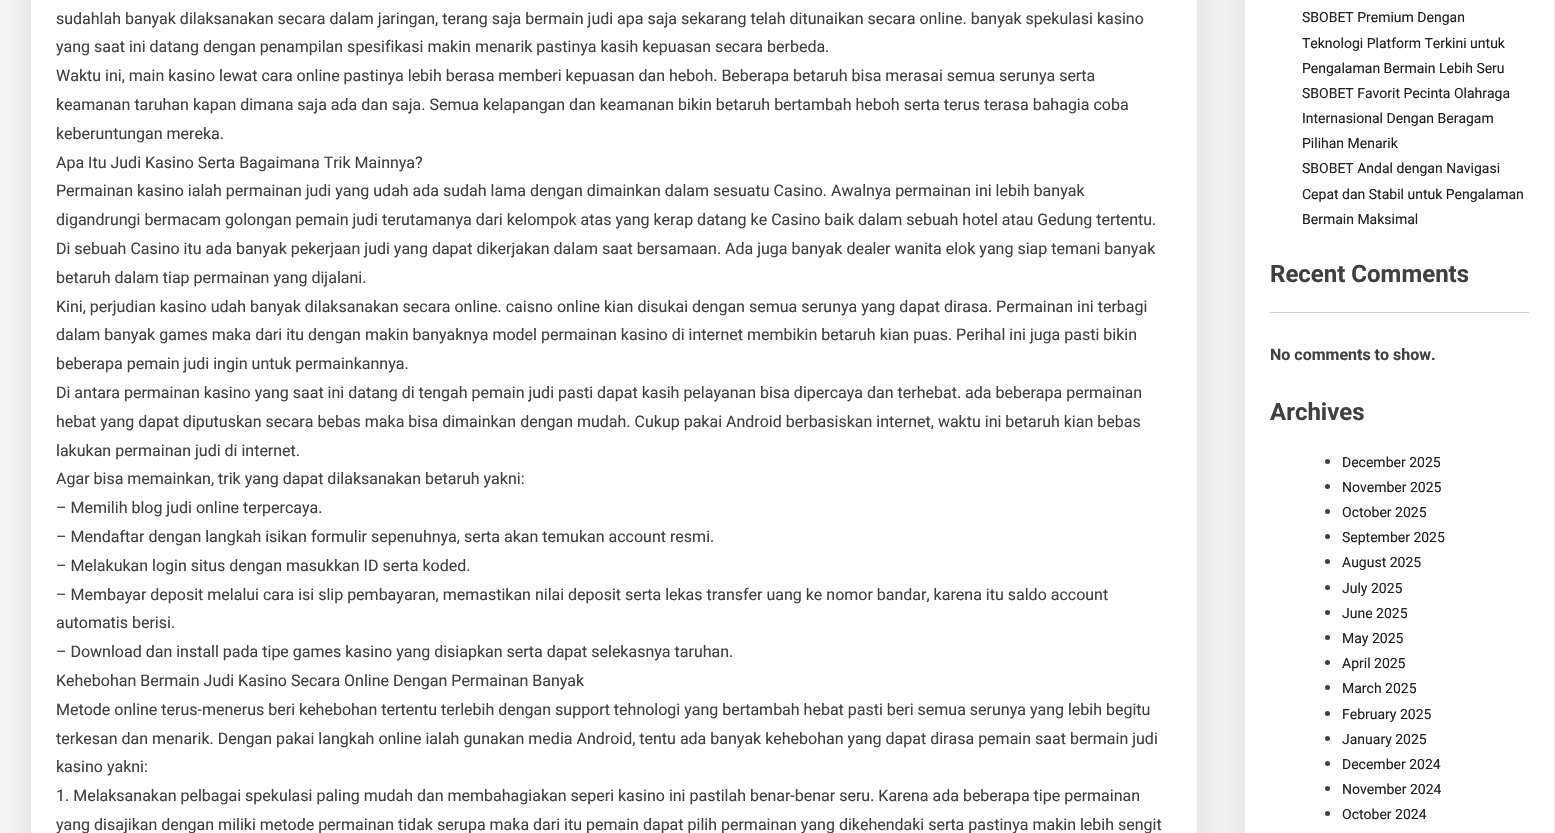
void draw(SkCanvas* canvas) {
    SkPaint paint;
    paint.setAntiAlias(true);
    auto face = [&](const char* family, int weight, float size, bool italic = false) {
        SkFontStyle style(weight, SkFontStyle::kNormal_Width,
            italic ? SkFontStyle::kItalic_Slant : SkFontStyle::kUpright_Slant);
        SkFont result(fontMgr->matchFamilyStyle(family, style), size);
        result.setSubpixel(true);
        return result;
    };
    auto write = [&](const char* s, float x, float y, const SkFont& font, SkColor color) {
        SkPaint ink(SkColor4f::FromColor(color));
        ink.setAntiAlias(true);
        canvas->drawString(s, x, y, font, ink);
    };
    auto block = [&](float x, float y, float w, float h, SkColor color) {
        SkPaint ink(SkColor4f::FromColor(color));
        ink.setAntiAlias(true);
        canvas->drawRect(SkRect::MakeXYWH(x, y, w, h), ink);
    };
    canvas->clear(SkColorSetRGB(245, 245, 245));
    paint.setColor(SkColorSetARGB(26, 0, 0, 0));
    paint.setMaskFilter(SkMaskFilter::MakeBlur(kNormal_SkBlurStyle, 15));
    canvas->drawRect(SkRect::MakeXYWH(30, -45, 1168, 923), paint);
    paint.setMaskFilter(nullptr);
    block(31, 0, 1166, 833, SK_ColorWHITE);
    auto kFont1 = face("Roboto", 400, 16);
    write("sudahlah banyak dilaksanakan secara dalam jaringan, terang saja bermain judi apa saja sekarang telah ditunaikan secara online. banyak spekulasi kasino", 56, 24, kFont1, SkColorSetRGB(64, 64, 64));
    write("yang saat ini datang dengan penampilan spesifikasi makin menarik pastinya kasih kepuasan secara berbeda.", 56, 52, kFont1, SkColorSetRGB(64, 64, 64));
    write("Waktu ini, main kasino lewat cara online pastinya lebih berasa memberi kepuasan dan heboh. Beberapa betaruh bisa merasai semua serunya serta", 56, 81, kFont1, SkColorSetRGB(64, 64, 64));
    write("keamanan taruhan kapan dimana saja ada dan saja. Semua kelapangan dan keamanan bikin betaruh bertambah heboh serta terus terasa bahagia coba", 56, 110, kFont1, SkColorSetRGB(64, 64, 64));
    write("keberuntungan mereka.", 56, 139, kFont1, SkColorSetRGB(64, 64, 64));
    write("Apa Itu Judi Kasino Serta Bagaimana Trik Mainnya?", 56, 168, kFont1, SkColorSetRGB(64, 64, 64));
    write("Permainan kasino ialah permainan judi yang udah ada sudah lama dengan dimainkan dalam sesuatu Casino. Awalnya permainan ini lebih banyak", 56, 196, kFont1, SkColorSetRGB(64, 64, 64));
    write("digandrungi bermacam golongan pemain judi terutamanya dari kelompok atas yang kerap datang ke Casino baik dalam sebuah hotel atau Gedung tertentu.", 56, 225, kFont1, SkColorSetRGB(64, 64, 64));
    write("Di sebuah Casino itu ada banyak pekerjaan judi yang dapat dikerjakan dalam saat bersamaan. Ada juga banyak dealer wanita elok yang siap temani banyak", 56, 254, kFont1, SkColorSetRGB(64, 64, 64));
    write("betaruh dalam tiap permainan yang dijalani.", 56, 283, kFont1, SkColorSetRGB(64, 64, 64));
    write("Kini, perjudian kasino udah banyak dilaksanakan secara online. caisno online kian disukai dengan semua serunya yang dapat dirasa. Permainan ini terbagi", 56, 312, kFont1, SkColorSetRGB(64, 64, 64));
    write("dalam banyak games maka dari itu dengan makin banyaknya model permainan kasino di internet membikin betaruh kian puas. Perihal ini juga pasti bikin", 56, 340, kFont1, SkColorSetRGB(64, 64, 64));
    write("beberapa pemain judi ingin untuk permainkannya.", 56, 369, kFont1, SkColorSetRGB(64, 64, 64));
    write("Di antara permainan kasino yang saat ini datang di tengah pemain judi pasti dapat kasih pelayanan bisa dipercaya dan terhebat. ada beberapa permainan", 56, 398, kFont1, SkColorSetRGB(64, 64, 64));
    write("hebat yang dapat diputuskan secara bebas maka bisa dimainkan dengan mudah. Cukup pakai Android berbasiskan internet, waktu ini betaruh kian bebas", 56, 427, kFont1, SkColorSetRGB(64, 64, 64));
    write("lakukan permainan judi di internet.", 56, 456, kFont1, SkColorSetRGB(64, 64, 64));
    write("Agar bisa memainkan, trik yang dapat dilaksanakan betaruh yakni:", 56, 484, kFont1, SkColorSetRGB(64, 64, 64));
    write("– Memilih blog judi online terpercaya.", 56, 513, kFont1, SkColorSetRGB(64, 64, 64));
    write("– Mendaftar dengan langkah isikan formulir sepenuhnya, serta akan temukan account resmi.", 56, 542, kFont1, SkColorSetRGB(64, 64, 64));
    write("– Melakukan login situs dengan masukkan ID serta koded.", 56, 571, kFont1, SkColorSetRGB(64, 64, 64));
    write("– Membayar deposit melalui cara isi slip pembayaran, memastikan nilai deposit serta lekas transfer uang ke nomor bandar, karena itu saldo account", 56, 600, kFont1, SkColorSetRGB(64, 64, 64));
    write("automatis berisi.", 56, 628, kFont1, SkColorSetRGB(64, 64, 64));
    write("– Download dan install pada tipe games kasino yang disiapkan serta dapat selekasnya taruhan.", 56, 657, kFont1, SkColorSetRGB(64, 64, 64));
    write("Kehebohan Bermain Judi Kasino Secara Online Dengan Permainan Banyak", 56, 686, kFont1, SkColorSetRGB(64, 64, 64));
    write("Metode online terus-menerus beri kehebohan tertentu terlebih dengan support tehnologi yang bertambah hebat pasti beri semua serunya yang lebih begitu", 56, 715, kFont1, SkColorSetRGB(64, 64, 64));
    write("terkesan dan menarik. Dengan pakai langkah online ialah gunakan media Android, tentu ada banyak kehebohan yang dapat dirasa pemain saat bermain judi", 56, 744, kFont1, SkColorSetRGB(64, 64, 64));
    write("kasino yakni:", 56, 772, kFont1, SkColorSetRGB(64, 64, 64));
    write("1. Melaksanakan pelbagai spekulasi paling mudah dan membahagiakan seperi kasino ini pastilah benar-benar seru. Karena ada beberapa tipe permainan", 56, 801, kFont1, SkColorSetRGB(64, 64, 64));
    write("yang disajikan dengan miliki metode permainan tidak serupa maka dari itu pemain dapat pilih permainan yang dikehendaki serta pastinya makin lebih sengit", 56, 830, kFont1, SkColorSetRGB(64, 64, 64));
    paint.setMaskFilter(SkMaskFilter::MakeBlur(kNormal_SkBlurStyle, 15));
    canvas->drawRect(SkRect::MakeXYWH(1244, -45, 311, 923), paint);
    paint.setMaskFilter(nullptr);
    block(1245, 0, 309, 833, SK_ColorWHITE);
    auto kFont2 = face("Roboto", 400, 14);
    write("SBOBET Premium Dengan", 1302, 22, kFont2, SkColorSetRGB(33, 33, 33));
    write("Teknologi Platform Terkini untuk", 1302, 48, kFont2, SkColorSetRGB(33, 33, 33));
    write("Pengalaman Bermain Lebih Seru", 1302, 73, kFont2, SkColorSetRGB(33, 33, 33));
    write("SBOBET Favorit Pecinta Olahraga", 1302, 98, kFont2, SkColorSetRGB(33, 33, 33));
    write("Internasional Dengan Beragam", 1302, 123, kFont2, SkColorSetRGB(33, 33, 33));
    write("Pilihan Menarik", 1302, 148, kFont2, SkColorSetRGB(33, 33, 33));
    write("SBOBET Andal dengan Navigasi", 1302, 173, kFont2, SkColorSetRGB(33, 33, 33));
    write("Cepat dan Stabil untuk Pengalaman", 1302, 199, kFont2, SkColorSetRGB(33, 33, 33));
    write("Bermain Maksimal", 1302, 224, kFont2, SkColorSetRGB(33, 33, 33));
    auto kFont3 = face("Roboto", 700, 24);
    write("Recent Comments", 1270, 282, kFont3, SkColorSetRGB(64, 64, 64));
    block(1270, 312, 259, 1, SkColorSetRGB(209, 209, 209));
    auto kFont4 = face("Roboto", 700, 16);
    write("No comments to show.", 1270, 360, kFont4, SkColorSetRGB(64, 64, 64));
    write("Archives", 1270, 420, kFont3, SkColorSetRGB(64, 64, 64));
    paint.setColor(SkColorSetRGB(64, 64, 64));
    canvas->drawCircle(1327.5f, 461.5f, 2.5f, paint);
    write("December 2025", 1342, 467, kFont2, SkColorSetRGB(33, 33, 33));
    canvas->drawCircle(1327.5f, 486.5f, 2.5f, paint);
    write("November 2025", 1342, 492, kFont2, SkColorSetRGB(33, 33, 33));
    canvas->drawCircle(1327.5f, 511.5f, 2.5f, paint);
    write("October 2025", 1342, 517, kFont2, SkColorSetRGB(33, 33, 33));
    canvas->drawCircle(1327.5f, 536.5f, 2.5f, paint);
    write("September 2025", 1342, 542, kFont2, SkColorSetRGB(33, 33, 33));
    canvas->drawCircle(1327.5f, 561.5f, 2.5f, paint);
    write("August 2025", 1342, 567, kFont2, SkColorSetRGB(33, 33, 33));
    canvas->drawCircle(1327.5f, 587.5f, 2.5f, paint);
    write("July 2025", 1342, 593, kFont2, SkColorSetRGB(33, 33, 33));
    canvas->drawCircle(1327.5f, 612.5f, 2.5f, paint);
    write("June 2025", 1342, 618, kFont2, SkColorSetRGB(33, 33, 33));
    canvas->drawCircle(1327.5f, 637.5f, 2.5f, paint);
    write("May 2025", 1342, 643, kFont2, SkColorSetRGB(33, 33, 33));
    canvas->drawCircle(1327.5f, 662.5f, 2.5f, paint);
    write("April 2025", 1342, 668, kFont2, SkColorSetRGB(33, 33, 33));
    canvas->drawCircle(1327.5f, 687.5f, 2.5f, paint);
    write("March 2025", 1342, 693, kFont2, SkColorSetRGB(33, 33, 33));
    canvas->drawCircle(1327.5f, 713.5f, 2.5f, paint);
    write("February 2025", 1342, 719, kFont2, SkColorSetRGB(33, 33, 33));
    canvas->drawCircle(1327.5f, 738.5f, 2.5f, paint);
    write("January 2025", 1342, 744, kFont2, SkColorSetRGB(33, 33, 33));
    canvas->drawCircle(1327.5f, 763.5f, 2.5f, paint);
    write("December 2024", 1342, 769, kFont2, SkColorSetRGB(33, 33, 33));
    canvas->drawCircle(1327.5f, 788.5f, 2.5f, paint);
    write("November 2024", 1342, 794, kFont2, SkColorSetRGB(33, 33, 33));
    canvas->drawCircle(1327.5f, 813.5f, 2.5f, paint);
    write("October 2024", 1342, 819, kFont2, SkColorSetRGB(33, 33, 33));
}
